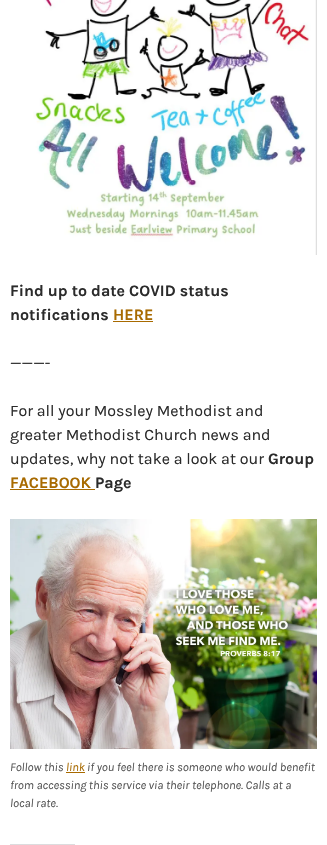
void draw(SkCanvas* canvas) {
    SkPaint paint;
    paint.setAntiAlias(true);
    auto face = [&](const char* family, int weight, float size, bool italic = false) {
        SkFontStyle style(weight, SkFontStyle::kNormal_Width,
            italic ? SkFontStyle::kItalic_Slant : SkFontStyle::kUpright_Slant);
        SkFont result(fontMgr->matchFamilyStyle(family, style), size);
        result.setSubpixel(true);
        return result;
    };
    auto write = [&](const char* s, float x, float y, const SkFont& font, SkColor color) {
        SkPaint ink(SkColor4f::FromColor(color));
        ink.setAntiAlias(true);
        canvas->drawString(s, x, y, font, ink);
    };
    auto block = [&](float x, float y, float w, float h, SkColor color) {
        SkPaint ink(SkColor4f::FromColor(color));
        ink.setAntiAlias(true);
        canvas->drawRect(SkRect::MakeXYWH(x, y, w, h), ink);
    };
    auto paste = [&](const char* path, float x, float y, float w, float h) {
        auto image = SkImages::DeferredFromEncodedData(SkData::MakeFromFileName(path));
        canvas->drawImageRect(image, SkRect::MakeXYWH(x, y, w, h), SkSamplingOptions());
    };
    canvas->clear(SK_ColorWHITE);
    paste("pic1.png", 33, 0, 284, 255);
    auto kFont1 = face("Karla", 700, 16);
    write("Find up to date COVID status", 10, 296, kFont1, SkColorSetRGB(43, 43, 43));
    write("notifications", 10, 320, kFont1, SkColorSetRGB(43, 43, 43));
    write("HERE", 113, 320, kFont1, SkColorSetRGB(168, 106, 0));
    block(113, 321, 40, 1, SkColorSetRGB(168, 106, 0));
    auto kFont2 = face("Karla", 400, 16);
    write("———-", 10, 368, kFont2, SkColorSetRGB(43, 43, 43));
    write("For all your Mossley Methodist and", 10, 416, kFont2, SkColorSetRGB(43, 43, 43));
    write("greater Methodist Church news and", 10, 440, kFont2, SkColorSetRGB(43, 43, 43));
    write("updates, why not take a look at our", 10, 464, kFont2, SkColorSetRGB(43, 43, 43));
    write("Group", 268, 464, kFont1, SkColorSetRGB(43, 43, 43));
    write("FACEBOOK", 10, 488, kFont1, SkColorSetRGB(168, 106, 0));
    write("Page", 95, 488, kFont1, SkColorSetRGB(43, 43, 43));
    block(10, 489, 85, 1, SkColorSetRGB(168, 106, 0));
    paste("pic2.png", 10, 519, 307, 230);
    auto kFont3 = face("Karla", 400, 12, true);
    write("Follow this", 10, 771, kFont3, SkColorSetRGB(85, 85, 85));
    write("link", 66, 771, kFont3, SkColorSetRGB(168, 106, 0));
    block(66, 772, 19, 1, SkColorSetRGB(168, 106, 0));
    write("if you feel there is someone who would benefit", 87, 771, kFont3, SkColorSetRGB(85, 85, 85));
    write("from accessing this service via their telephone. Calls at a", 10, 789, kFont3, SkColorSetRGB(85, 85, 85));
    write("local rate.", 10, 807, kFont3, SkColorSetRGB(85, 85, 85));
    block(10, 844, 65, 1, SkColorSetRGB(220, 220, 222));
}
